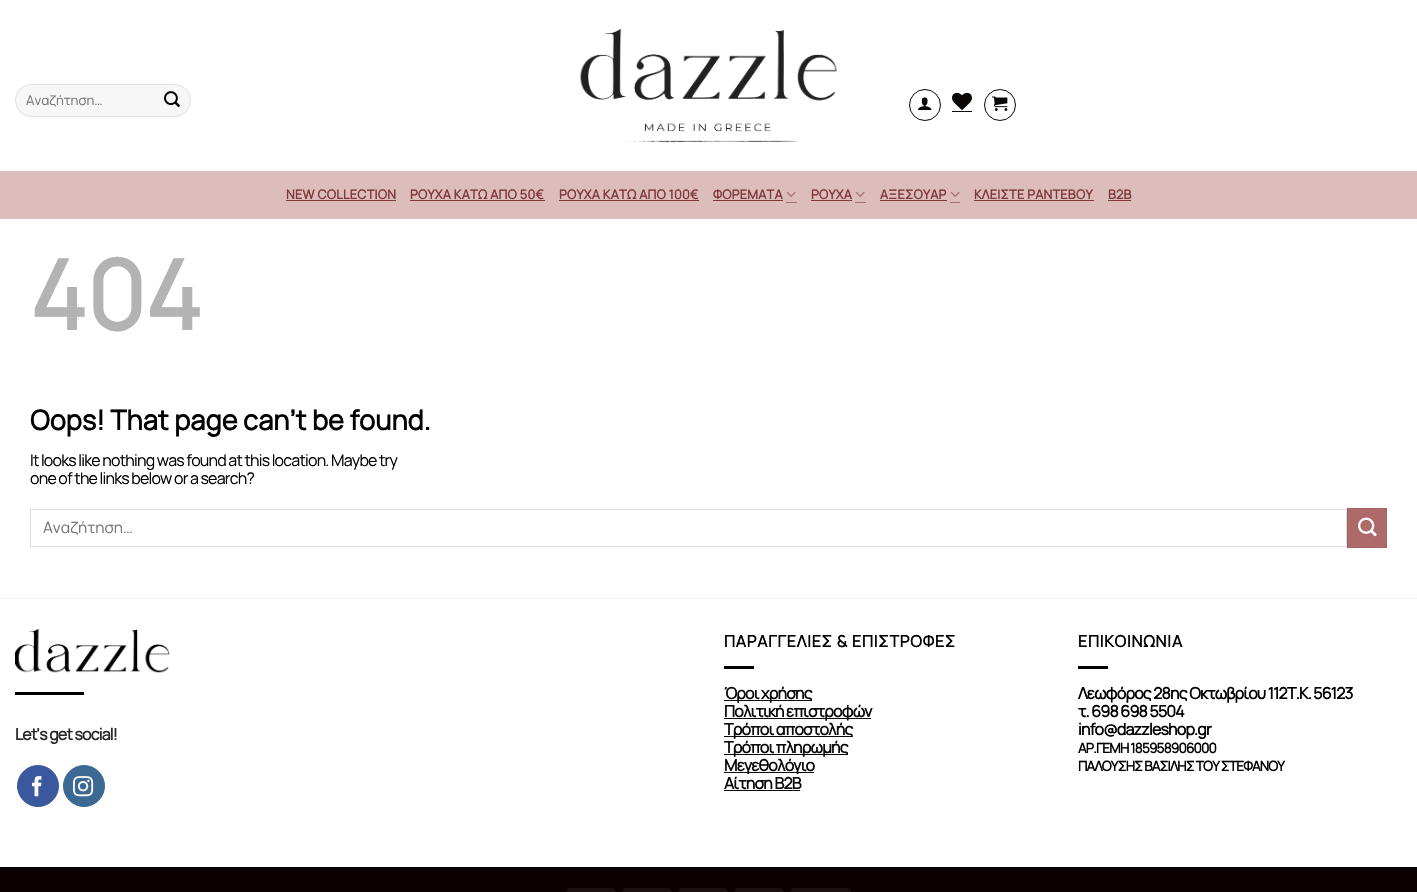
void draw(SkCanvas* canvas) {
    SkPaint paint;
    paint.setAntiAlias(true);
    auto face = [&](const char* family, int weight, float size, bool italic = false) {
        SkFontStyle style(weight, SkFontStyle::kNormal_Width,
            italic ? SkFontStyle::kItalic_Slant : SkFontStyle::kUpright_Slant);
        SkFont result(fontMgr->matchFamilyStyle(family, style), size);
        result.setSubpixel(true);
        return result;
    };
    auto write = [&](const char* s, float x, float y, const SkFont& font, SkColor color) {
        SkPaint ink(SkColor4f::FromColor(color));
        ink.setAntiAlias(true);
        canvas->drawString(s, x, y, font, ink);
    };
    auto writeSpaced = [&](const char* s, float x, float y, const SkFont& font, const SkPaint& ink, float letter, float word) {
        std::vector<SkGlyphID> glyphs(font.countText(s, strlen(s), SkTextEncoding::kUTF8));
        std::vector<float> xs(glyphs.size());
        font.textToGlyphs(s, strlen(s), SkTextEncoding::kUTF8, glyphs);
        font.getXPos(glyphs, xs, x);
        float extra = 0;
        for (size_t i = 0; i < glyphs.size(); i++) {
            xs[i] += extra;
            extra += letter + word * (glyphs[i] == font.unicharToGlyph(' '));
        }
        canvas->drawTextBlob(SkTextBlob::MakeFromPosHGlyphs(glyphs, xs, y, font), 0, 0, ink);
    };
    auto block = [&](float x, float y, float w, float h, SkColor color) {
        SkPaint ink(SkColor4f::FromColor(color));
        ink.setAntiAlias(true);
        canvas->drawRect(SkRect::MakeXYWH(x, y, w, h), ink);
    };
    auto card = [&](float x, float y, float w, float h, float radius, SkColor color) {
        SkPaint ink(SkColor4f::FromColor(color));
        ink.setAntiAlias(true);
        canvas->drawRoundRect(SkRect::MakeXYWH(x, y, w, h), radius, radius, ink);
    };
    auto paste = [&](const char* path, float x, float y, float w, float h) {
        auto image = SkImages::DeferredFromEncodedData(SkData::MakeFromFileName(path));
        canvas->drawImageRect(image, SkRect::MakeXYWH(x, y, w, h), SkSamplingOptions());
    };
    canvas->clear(SK_ColorWHITE);
    card(15, 84, 176, 33, 16.5f, SkColorSetRGB(247, 247, 247));
    paint.setStyle(SkPaint::kStroke_Style);
    paint.setStrokeWidth(1);
    paint.setColor(SkColorSetARGB(23, 0, 0, 0));
    canvas->drawRoundRect(SkRect::MakeXYWH(15.5f, 84.5f, 175, 32), 16, 16, paint);
    auto kFont1 = face("Manrope", 400, 13.25f);
    write("Αναζήτηση…", 26, 105, kFont1, SkColorSetRGB(117, 117, 117));
    paste("pic1.png", 164, 91, 16, 16);
    paste("pic2.png", 580, 28, 257, 115);
    paint.setColor(SkColorSetRGB(10, 6, 6));
    canvas->drawCircle(925, 105, 15.5f, paint);
    paste("pic3.png", 918, 97, 14, 13);
    paste("pic4.png", 952, 92, 20, 18);
    block(952, 111, 20, 1, SkColorSetRGB(10, 10, 10));
    canvas->drawCircle(1000, 105, 15.5f, paint);
    paste("pic5.png", 992, 96, 16, 15);
    block(0, 171, 1417, 48, SkColorSetRGB(221, 188, 188));
    auto kFont2 = face("Manrope", 700, 12.75f);
    paint.setStyle(SkPaint::kFill_Style);
    paint.setColor(SkColorSetRGB(126, 56, 56));
    writeSpaced("NEW COLLECTION", 286, 199, kFont2, paint, 0.25f, 0);
    block(286, 200, 110, 1, SkColorSetRGB(126, 56, 56));
    writeSpaced("ΡΟΥΧΑ ΚΑΤΩ ΑΠΟ 50€", 410, 199, kFont2, paint, 0.25f, 0);
    block(410, 200, 135, 1, SkColorSetRGB(126, 56, 56));
    writeSpaced("ΡΟΥΧΑ ΚΑΤΩ ΑΠΟ 100€", 559, 199, kFont2, paint, 0.25f, 0);
    block(559, 200, 140, 1, SkColorSetRGB(126, 56, 56));
    writeSpaced("ΦΟΡΕΜΑΤΑ", 713, 199, kFont2, paint, 0.25f, 0);
    block(713, 200, 70, 1, SkColorSetRGB(126, 56, 56));
    paste("pic6.png", 786, 191, 10, 6);
    block(786, 202, 11, 1, SkColorSetRGB(164, 109, 109));
    writeSpaced("ΡΟΥΧΑ", 811, 199, kFont2, paint, 0.25f, 0);
    block(811, 200, 41, 1, SkColorSetRGB(126, 56, 56));
    paste("pic6.png", 855, 191, 10, 6);
    block(855, 202, 11, 1, SkColorSetRGB(164, 109, 109));
    writeSpaced("ΑΞΕΣΟΥΑΡ", 880, 199, kFont2, paint, 0.25f, 0);
    block(880, 200, 67, 1, SkColorSetRGB(126, 56, 56));
    paste("pic6.png", 950, 191, 10, 6);
    block(950, 202, 10, 1, SkColorSetRGB(164, 109, 109));
    writeSpaced("ΚΛΕΙΣΤΕ ΡΑΝΤΕΒΟΥ", 974, 199, kFont2, paint, 0.25f, 0);
    block(974, 200, 120, 1, SkColorSetRGB(126, 56, 56));
    writeSpaced("Β2Β", 1108, 199, kFont2, paint, 0.25f, 0);
    block(1108, 200, 23, 1, SkColorSetRGB(126, 56, 56));
    auto kFont3 = face("Manrope", 700, 96);
    write("404", 30, 330, kFont3, SkColorSetRGB(179, 179, 179));
    auto kFont4 = face("Manrope", 700, 27.25f);
    write("Oops! That page can’t be found.", 30, 430, kFont4, SK_ColorBLACK);
    auto kFont5 = face("Manrope", 400, 16);
    paint.setColor(SK_ColorBLACK);
    writeSpaced("It looks like nothing was found at this location. Maybe try", 30, 466, kFont5, paint, -0.8f, 0);
    writeSpaced("one of the links below or a search?", 30, 484, kFont5, paint, -0.8f, 0);
    paint.setStyle(SkPaint::kStroke_Style);
    paint.setColor(SkColorSetRGB(221, 221, 221));
    canvas->drawRect(SkRect::MakeXYWH(30.5f, 509.5f, 1316, 37), paint);
    auto kFont6 = face("Manrope", 400, 15.5f);
    write("Αναζήτηση…", 43, 533, kFont6, SkColorSetRGB(117, 117, 117));
    paint.setStyle(SkPaint::kFill_Style);
    paint.setColor(SkColorSetRGB(174, 105, 105));
    canvas->drawRect(SkRect::MakeXYWH(1347.5f, 508.5f, 39, 39), paint);
    paint.setStyle(SkPaint::kStroke_Style);
    paint.setColor(SkColorSetRGB(165, 100, 100));
    canvas->drawRect(SkRect::MakeXYWH(1347.5f, 508.5f, 39, 39), paint);
    paste("pic7.png", 1358, 517, 19, 20);
    block(0, 598, 1417, 1, SkColorSetRGB(242, 242, 242));
    paste("pic8.png", 15, 629, 155, 44);
    block(15, 692, 69, 3, SK_ColorBLACK);
    auto kFont7 = face("Manrope", 700, 16);
    paint.setStyle(SkPaint::kFill_Style);
    paint.setColor(SkColorSetRGB(40, 40, 40));
    writeSpaced("Let's get social!", 15, 740, kFont7, paint, -0.8f, 0);
    paint.setColor(SkColorSetRGB(58, 88, 157));
    canvas->drawCircle(38, 786, 20.5f, paint);
    paint.setStyle(SkPaint::kStroke_Style);
    canvas->drawCircle(38, 786, 20.5f, paint);
    paste("pic9.png", 32, 776, 10, 21);
    paint.setStyle(SkPaint::kFill_Style);
    paint.setColor(SkColorSetRGB(59, 105, 148));
    canvas->drawCircle(84, 786, 20.5f, paint);
    paint.setStyle(SkPaint::kStroke_Style);
    canvas->drawCircle(84, 786, 20.5f, paint);
    paste("pic10.png", 73, 776, 21, 21);
    paint.setStyle(SkPaint::kFill_Style);
    paint.setColor(SK_ColorBLACK);
    writeSpaced("ΠΑΡΑΓΓΕΛΙΕΣ & ΕΠΙΣΤΡΟΦΕΣ", 724, 647, kFont7, paint, 0.8f, 0);
    block(724, 666, 30, 3, SK_ColorBLACK);
    block(724, 700, 87, 1, SkColorSetRGB(10, 10, 10));
    paint.setColor(SkColorSetRGB(10, 10, 10));
    writeSpaced("Όροι χρήσης", 724, 699, kFont7, paint, -0.8f, 0);
    block(724, 718, 147, 1, SkColorSetRGB(10, 10, 10));
    writeSpaced("Πολιτική επιστροφών", 724, 717, kFont7, paint, -0.8f, 0);
    block(724, 736, 128, 1, SkColorSetRGB(10, 10, 10));
    writeSpaced("Τρόποι αποστολής", 724, 735, kFont7, paint, -0.8f, 0);
    block(724, 754, 123, 1, SkColorSetRGB(10, 10, 10));
    writeSpaced("Τρόποι πληρωμής", 724, 753, kFont7, paint, -0.8f, 0);
    block(724, 772, 90, 1, SkColorSetRGB(10, 10, 10));
    writeSpaced("Μεγεθολόγιο", 724, 771, kFont7, paint, -0.8f, 0);
    writeSpaced("Αίτηση Β2Β", 724, 789, kFont7, paint, -0.8f, 0);
    block(724, 790, 76, 1, SkColorSetRGB(10, 10, 10));
    paint.setColor(SK_ColorBLACK);
    writeSpaced("ΕΠΙΚΟΙΝΩΝΙΑ", 1078, 647, kFont7, paint, 0.8f, 0);
    block(1078, 666, 30, 3, SK_ColorBLACK);
    writeSpaced("Λεωφόρος 28ης Οκτωβρίου 112Τ.Κ. 56123", 1078, 699, kFont7, paint, -0.8f, 0);
    writeSpaced("τ. 698 698 5504", 1078, 717, kFont7, paint, -0.8f, 0);
    writeSpaced("info@dazzleshop.gr", 1078, 735, kFont7, paint, -0.8f, 0);
    auto kFont8 = face("Manrope", 700, 13.6f);
    writeSpaced("ΑΡ.ΓΕΜΗ 185958906000", 1078, 753, kFont8, paint, -0.8f, 0);
    writeSpaced("ΠΑΛΟΥΣΗΣ ΒΑΣΙΛΗΣ ΤΟΥ ΣΤΕΦΑΝΟΥ", 1078, 771, kFont8, paint, -0.8f, 0);
    block(0, 867, 1417, 25, SkColorSetRGB(10, 1, 1));
    card(566, 888, 50, 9, 5, SkColorSetRGB(25, 16, 16));
    card(622, 888, 50, 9, 5, SkColorSetRGB(25, 16, 16));
    card(678, 888, 50, 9, 5, SkColorSetRGB(25, 16, 16));
    card(734, 888, 50, 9, 5, SkColorSetRGB(25, 16, 16));
    card(790, 888, 61, 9, 5, SkColorSetRGB(25, 16, 16));
}
